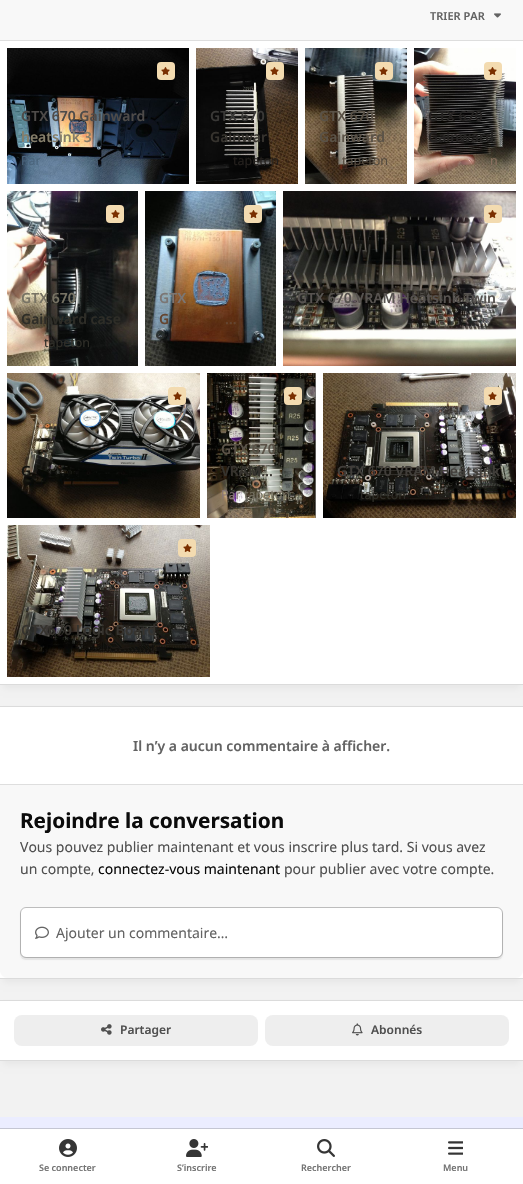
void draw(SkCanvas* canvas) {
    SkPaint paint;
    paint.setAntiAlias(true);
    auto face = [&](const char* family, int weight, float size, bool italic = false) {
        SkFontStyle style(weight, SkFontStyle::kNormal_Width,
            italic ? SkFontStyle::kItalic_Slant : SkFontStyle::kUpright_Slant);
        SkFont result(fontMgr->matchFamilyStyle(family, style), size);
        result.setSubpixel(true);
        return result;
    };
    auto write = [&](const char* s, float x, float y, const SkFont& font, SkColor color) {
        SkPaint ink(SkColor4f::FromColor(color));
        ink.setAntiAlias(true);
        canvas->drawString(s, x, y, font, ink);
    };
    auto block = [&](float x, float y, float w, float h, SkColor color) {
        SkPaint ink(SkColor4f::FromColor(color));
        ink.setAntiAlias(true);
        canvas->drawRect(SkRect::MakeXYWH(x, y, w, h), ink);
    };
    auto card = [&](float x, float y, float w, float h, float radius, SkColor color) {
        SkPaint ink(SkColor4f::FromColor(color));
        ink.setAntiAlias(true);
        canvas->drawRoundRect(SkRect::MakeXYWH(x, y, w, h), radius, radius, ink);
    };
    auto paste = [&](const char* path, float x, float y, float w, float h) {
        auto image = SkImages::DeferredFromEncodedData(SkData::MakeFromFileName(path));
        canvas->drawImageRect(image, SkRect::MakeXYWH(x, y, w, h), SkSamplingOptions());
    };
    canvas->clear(SkColorSetRGB(242, 242, 242));
    paint.setColor(SkColorSetARGB(13, 3, 3, 3));
    paint.setMaskFilter(SkMaskFilter::MakeBlur(kNormal_SkBlurStyle, 3.5f));
    canvas->drawRect(SkRect::MakeXYWH(3, 0, 517, 688), paint);
    paint.setMaskFilter(nullptr);
    block(0, 41, 523, 643, SK_ColorWHITE);
    block(0, 684, 523, 1, SkColorSetRGB(219, 219, 219));
    block(0, 0, 523, 40, SkColorSetRGB(248, 248, 248));
    block(0, 40, 523, 1, SkColorSetRGB(222, 222, 222));
    auto kFont1 = face("Noto Sans", 600, 11);
    write("TRIER PAR", 430, 20, kFont1, SkColorSetRGB(99, 99, 99));
    paste("pic1.png", 494, 13, 7, 5);
    paste("pic2.png", 7, 48, 182, 136);
    card(157, 62, 18, 18, 4, SkColorSetRGB(243, 219, 176));
    paste("pic3.png", 161, 67, 9, 8);
    auto kFont2 = face("Noto Sans", 600, 14);
    write("GTX 670 Gainward", 21, 121, kFont2, SkColorSetRGB(78, 75, 73));
    write("heatsink 3", 21, 142, kFont2, SkColorSetRGB(133, 126, 106));
    auto kFont3 = face("Noto Sans", 400, 12.5f);
    write("Par", 21, 165, kFont3, SkColorSetRGB(74, 100, 124));
    paste("pic4.png", 196, 48, 102, 136);
    card(266, 62, 18, 18, 4, SkColorSetRGB(243, 219, 176));
    paste("pic3.png", 270, 67, 9, 8);
    write("GTX 670", 210, 121, kFont2, SkColorSetRGB(57, 56, 54));
    write("Gainwar", 210, 142, kFont2, SkColorSetRGB(54, 51, 46));
    write("tapeton", 233, 165, kFont3, SkColorSetRGB(35, 31, 28));
    paste("pic5.png", 305, 48, 102, 136);
    card(375, 62, 18, 18, 4, SkColorSetRGB(243, 219, 176));
    paste("pic3.png", 379, 67, 9, 8);
    write("GTX 670", 319, 121, kFont2, SkColorSetRGB(90, 82, 71));
    write("Gainward", 319, 142, kFont2, SkColorSetRGB(90, 82, 71));
    write("tapeton", 342, 165, kFont3, SkColorSetRGB(83, 74, 62));
    paste("pic6.png", 414, 48, 102, 136);
    card(484, 62, 18, 18, 4, SkColorSetRGB(243, 219, 176));
    paste("pic3.png", 488, 67, 9, 8);
    write("GTX 670", 428, 121, kFont2, SkColorSetRGB(37, 35, 34));
    write("Gainward", 428, 142, kFont2, SkColorSetRGB(37, 35, 34));
    write("n", 490, 165, kFont3, SkColorSetRGB(140, 113, 96));
    paste("pic7.png", 7, 191, 131, 175);
    card(106, 205, 18, 18, 4, SkColorSetRGB(243, 219, 176));
    paste("pic3.png", 111, 210, 9, 8);
    write("GTX 670", 21, 303, kFont2, SkColorSetRGB(119, 115, 100));
    write("Gainward case", 21, 324, kFont2, SkColorSetRGB(46, 45, 39));
    write("tapeton", 44, 347, kFont3, SkColorSetRGB(46, 45, 39));
    paste("pic8.png", 145, 191, 131, 175);
    card(244, 205, 18, 18, 4, SkColorSetRGB(243, 219, 176));
    paste("pic3.png", 249, 210, 9, 8);
    write("GTX", 159, 303, kFont2, SkColorSetRGB(123, 118, 116));
    write("G", 159, 324, kFont2, SkColorSetRGB(101, 69, 48));
    write("…", 225, 324, kFont2, SkColorSetRGB(101, 69, 48));
    paste("pic9.png", 283, 191, 233, 175);
    card(484, 205, 18, 18, 4, SkColorSetRGB(243, 219, 176));
    paste("pic3.png", 488, 210, 9, 8);
    write("GTX 670 VRAM Heatsink Twin", 297, 303, kFont2, SkColorSetRGB(87, 83, 80));
    paste("pic10.png", 7, 373, 193, 145);
    card(168, 387, 18, 18, 4, SkColorSetRGB(243, 219, 176));
    paste("pic3.png", 173, 392, 9, 8);
    write("G", 21, 476, kFont2, SkColorSetRGB(20, 20, 16));
    paste("pic11.png", 207, 373, 109, 145);
    card(284, 387, 18, 18, 4, SkColorSetRGB(243, 219, 176));
    paste("pic3.png", 288, 392, 9, 8);
    write("GTX 670", 221, 454, kFont2, SkColorSetRGB(90, 82, 71));
    write("VRAM…", 221, 476, kFont2, SkColorSetRGB(54, 51, 46));
    write("Par", 221, 499, kFont3, SkColorSetRGB(134, 118, 118));
    write("tapeton", 244, 499, kFont3, SkColorSetRGB(119, 115, 100));
    paste("pic12.png", 323, 373, 193, 145);
    card(484, 387, 18, 18, 4, SkColorSetRGB(243, 219, 176));
    paste("pic3.png", 488, 392, 9, 8);
    write("GTX 670 VRAM Heatsink", 337, 476, kFont2, SkColorSetRGB(65, 62, 58));
    write("tapeton", 360, 499, kFont3, SkColorSetRGB(46, 45, 39));
    paste("pic13.png", 7, 525, 203, 152);
    card(178, 539, 18, 18, 4, SkColorSetRGB(243, 219, 176));
    paste("pic3.png", 183, 544, 9, 8);
    write("GTX670 Logic Board", 21, 635, kFont2, SkColorSetRGB(54, 51, 46));
    paint.setMaskFilter(SkMaskFilter::MakeBlur(kNormal_SkBlurStyle, 3.5f));
    canvas->drawRect(SkRect::MakeXYWH(3, 715, 517, 267), paint);
    paint.setMaskFilter(nullptr);
    block(0, 707, 523, 271, SK_ColorWHITE);
    block(0, 706, 523, 1, SkColorSetRGB(219, 219, 219));
    block(0, 978, 523, 1, SkColorSetRGB(219, 219, 219));
    write("Il n’y a aucun commentaire à afficher.", 133, 751, kFont2, SkColorSetRGB(99, 99, 99));
    paint.setColor(SkColorSetRGB(248, 248, 248));
    canvas->drawPath(SkPathBuilder().moveTo(0, 784).lineTo(523, 784).lineTo(523, 970).cubicTo(523, 974.5f, 519.5f, 978, 515, 978).lineTo(8, 978).cubicTo(3.5f, 978, 0, 974.5f, 0, 970).close().detach(), paint);
    block(0, 784, 523, 1, SkColorSetRGB(222, 222, 222));
    auto kFont4 = face("Noto Sans", 700, 20.75f);
    write("Rejoindre la conversation", 20, 828, kFont4, SkColorSetRGB(11, 11, 11));
    auto kFont5 = face("Noto Sans", 400, 14);
    write("Vous pouvez publier maintenant et vous inscrire plus tard. Si vous avez", 20, 852, kFont5, SkColorSetRGB(80, 80, 80));
    write("un compte,", 20, 874, kFont5, SkColorSetRGB(80, 80, 80));
    write("connectez-vous maintenant", 98, 874, kFont5, SkColorSetRGB(11, 11, 11));
    write("pour publier avec votre compte.", 284, 874, kFont5, SkColorSetRGB(80, 80, 80));
    paint.setColor(SkColorSetARGB(20, 0, 0, 0));
    paint.setMaskFilter(SkMaskFilter::MakeBlur(kNormal_SkBlurStyle, 0.5f));
    canvas->drawRoundRect(SkRect::MakeXYWH(20, 909, 483, 51), 6, 6, paint);
    paint.setMaskFilter(nullptr);
    card(21, 908, 481, 49, 5, SK_ColorWHITE);
    paint.setStyle(SkPaint::kStroke_Style);
    paint.setStrokeWidth(1);
    paint.setColor(SkColorSetARGB(89, 80, 80, 80));
    canvas->drawRoundRect(SkRect::MakeXYWH(20.5f, 907.5f, 482, 50), 5.5f, 5.5f, paint);
    paste("pic14.png", 35, 926, 14, 13);
    write("Ajouter un commentaire…", 56, 938, kFont5, SkColorSetRGB(99, 99, 99));
    paint.setStyle(SkPaint::kFill_Style);
    paint.setColor(SkColorSetARGB(13, 3, 3, 3));
    paint.setMaskFilter(SkMaskFilter::MakeBlur(kNormal_SkBlurStyle, 3.5f));
    canvas->drawRect(SkRect::MakeXYWH(3, 1009, 517, 55), paint);
    paint.setMaskFilter(nullptr);
    block(0, 1001, 523, 59, SK_ColorWHITE);
    block(0, 1000, 523, 1, SkColorSetRGB(219, 219, 219));
    block(0, 1060, 523, 1, SkColorSetRGB(219, 219, 219));
    card(14, 1015, 244, 31, 8, SkColorSetRGB(238, 238, 238));
    paste("pic15.png", 101, 1024, 11, 11);
    auto kFont6 = face("Noto Sans", 600, 12);
    write("Partager", 120, 1034, kFont6, SkColorSetRGB(80, 80, 80));
    card(265, 1015, 244, 31, 8, SkColorSetRGB(238, 238, 238));
    paste("pic16.png", 352, 1023, 11, 13);
    write("Abonnés", 371, 1034, kFont6, SkColorSetRGB(80, 80, 80));
    block(0, 1117, 523, 11, SkColorSetRGB(235, 237, 255));
    block(0, 1128, 523, 1, SkColorSetRGB(196, 198, 211));
    block(0, 1129, 523, 55, SK_ColorWHITE);
    paste("pic17.png", 59, 1139, 18, 18);
    auto kFont7 = face("Noto Sans", 600, 9);
    write("Se connecter", 39, 1171, kFont7, SkColorSetRGB(114, 114, 114));
    paste("pic18.png", 186, 1139, 22, 18);
    write("S’inscrire", 177, 1171, kFont7, SkColorSetRGB(114, 114, 114));
    paste("pic19.png", 317, 1139, 18, 18);
    write("Rechercher", 301, 1171, kFont7, SkColorSetRGB(114, 114, 114));
    paste("pic20.png", 448, 1141, 15, 14);
    write("Menu", 443, 1171, kFont7, SkColorSetRGB(114, 114, 114));
}
